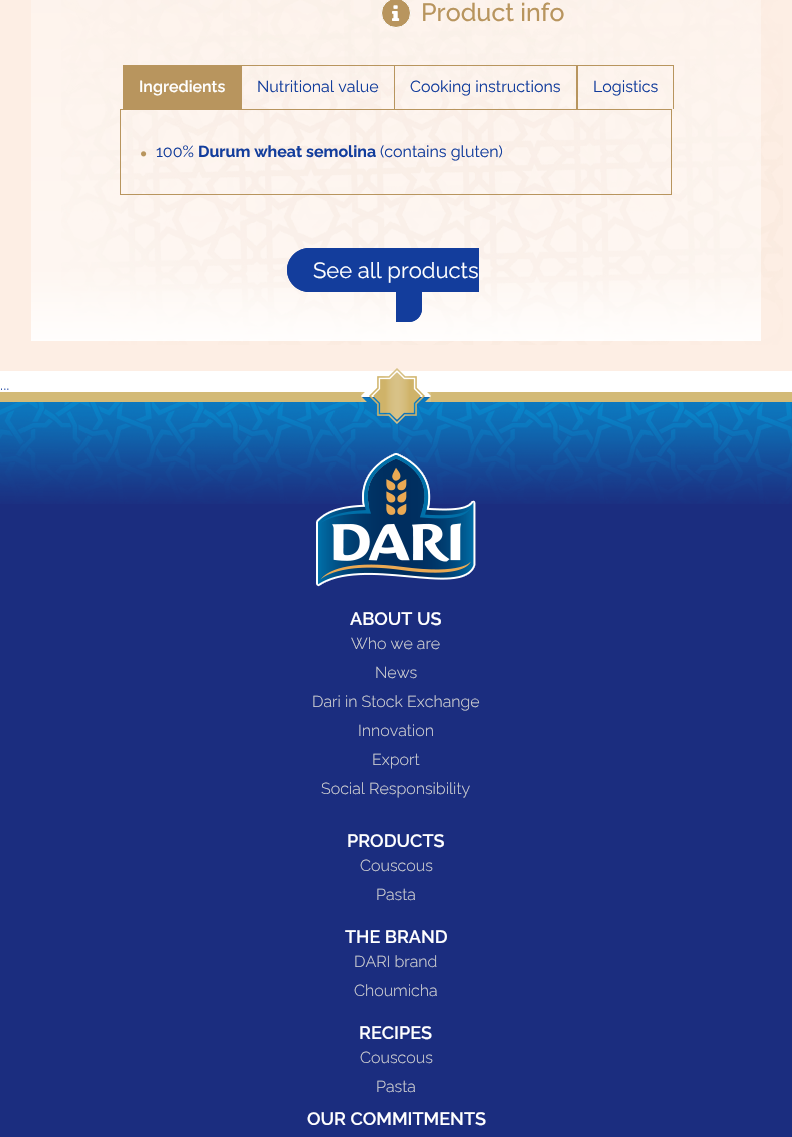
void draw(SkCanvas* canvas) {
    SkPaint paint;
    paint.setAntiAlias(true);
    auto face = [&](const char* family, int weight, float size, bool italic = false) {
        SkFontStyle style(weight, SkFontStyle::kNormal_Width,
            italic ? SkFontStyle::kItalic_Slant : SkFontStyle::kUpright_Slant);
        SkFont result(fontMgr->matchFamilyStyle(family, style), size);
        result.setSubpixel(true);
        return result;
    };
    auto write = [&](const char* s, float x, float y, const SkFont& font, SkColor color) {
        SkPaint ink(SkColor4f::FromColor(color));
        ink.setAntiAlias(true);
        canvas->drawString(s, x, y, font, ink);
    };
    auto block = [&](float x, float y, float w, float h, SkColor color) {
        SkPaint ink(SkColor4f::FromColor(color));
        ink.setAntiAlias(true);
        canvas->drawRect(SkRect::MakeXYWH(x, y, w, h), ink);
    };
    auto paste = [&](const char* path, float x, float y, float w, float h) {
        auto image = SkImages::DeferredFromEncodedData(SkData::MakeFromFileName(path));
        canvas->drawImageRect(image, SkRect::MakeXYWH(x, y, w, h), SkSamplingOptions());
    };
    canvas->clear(SK_ColorWHITE);
    block(0, 0, 792, 371, SkColorSetRGB(253, 238, 228));
    paste("pic1.png", 61, 0, 722, 345);
    {
        const SkColor colors[] = {SkColorSetARGB(0, 255, 255, 255), SkColorSetARGB(51, 255, 255, 255), SkColorSetARGB(128, 255, 255, 255), SkColorSetARGB(230, 255, 255, 255)};
        const float stops[] = {0, 0.2f, 0.9f, 1};
        const SkPoint ends[] = {{396, -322}, {396, 341}};
        paint.setShader(SkGradientShader::MakeLinear(ends, colors, stops, 4, SkTileMode::kClamp));
        paint.setAlpha(255);
    }
    canvas->drawRect(SkRect::MakeXYWH(31, 0, 730, 341), paint);
    paint.setShader(nullptr);
    paint.setColor(SkColorSetRGB(184, 149, 94));
    canvas->drawCircle(396, 13, 14.5f, paint);
    paint.setStyle(SkPaint::kStroke_Style);
    paint.setStrokeWidth(1);
    paint.setColor(SK_ColorWHITE);
    canvas->drawCircle(396, 13, 14.5f, paint);
    paste("pic2.png", 392, 5, 8, 16);
    auto kFont1 = face("Raleway", 500, 25);
    write("Product info", 421, 21, kFont1, SkColorSetRGB(184, 149, 94));
    block(123, 65, 119, 1, SkColorSetRGB(184, 149, 94));
    block(241, 65, 1, 44, SkColorSetRGB(184, 149, 94));
    block(123, 65, 1, 44, SkColorSetRGB(184, 149, 94));
    block(124, 66, 117, 43, SkColorSetRGB(184, 149, 94));
    auto kFont2 = face("Raleway", 600, 16);
    write("Ingredients", 139, 92, kFont2, SK_ColorWHITE);
    block(241, 65, 154, 1, SkColorSetRGB(184, 149, 94));
    block(394, 65, 1, 44, SkColorSetRGB(184, 149, 94));
    auto kFont3 = face("Raleway", 400, 16);
    write("Nutritional value", 257, 92, kFont3, SkColorSetRGB(19, 61, 156));
    block(394, 65, 280, 1, SkColorSetRGB(184, 149, 94));
    block(576, 65, 2, 44, SkColorSetRGB(184, 149, 94));
    write("Cooking instructions", 410, 92, kFont3, SkColorSetRGB(19, 61, 156));
    block(673, 65, 1, 44, SkColorSetRGB(184, 149, 94));
    write("Logistics", 593, 92, kFont3, SkColorSetRGB(19, 61, 156));
    paint.setColor(SkColorSetRGB(184, 149, 94));
    canvas->drawRect(SkRect::MakeXYWH(120.5f, 109.5f, 551, 85), paint);
    paste("pic3.png", 141, 151, 6, 6);
    write("100%", 156, 157, kFont3, SkColorSetRGB(19, 61, 156));
    auto kFont4 = face("Raleway", 700, 16);
    write("Durum wheat semolina", 198, 157, kFont4, SkColorSetRGB(19, 61, 156));
    write("(contains gluten)", 380, 157, kFont3, SkColorSetRGB(19, 61, 156));
    paint.setStyle(SkPaint::kFill_Style);
    paint.setColor(SkColorSetRGB(19, 61, 156));
    canvas->drawPath(SkPathBuilder().moveTo(309, 248).lineTo(479, 248).lineTo(479, 292).lineTo(309, 292).cubicTo(297, 292, 287, 282, 287, 270).cubicTo(287, 258, 297, 248, 309, 248).close().detach(), paint);
    canvas->drawPath(SkPathBuilder(SkPathFillType::kEvenOdd).moveTo(309, 248).lineTo(479, 248).lineTo(479, 292).lineTo(309, 292).cubicTo(297, 292, 287, 282, 287, 270).cubicTo(287, 258, 297, 248, 309, 248).close().moveTo(309, 249).lineTo(479, 249).lineTo(479, 291).lineTo(309, 291).cubicTo(297, 291, 288, 282, 288, 270).cubicTo(288, 258, 297, 249, 309, 249).close().detach(), paint);
    canvas->drawPath(SkPathBuilder().moveTo(396, 261).lineTo(409, 261).cubicTo(416, 261, 422, 267, 422, 274).lineTo(422, 309).cubicTo(422, 316, 416, 322, 409, 322).lineTo(396, 322).close().detach(), paint);
    canvas->drawPath(SkPathBuilder(SkPathFillType::kEvenOdd).moveTo(396, 261).lineTo(409, 261).cubicTo(416, 261, 422, 267, 422, 274).lineTo(422, 309).cubicTo(422, 316, 416, 322, 409, 322).lineTo(396, 322).close().moveTo(396, 262).lineTo(409, 262).cubicTo(416, 262, 421, 267, 421, 274).lineTo(421, 309).cubicTo(421, 316, 416, 321, 409, 321).lineTo(396, 321).close().detach(), paint);
    auto kFont5 = face("Raleway", 400, 22);
    write("See all products", 313, 278, kFont5, SK_ColorWHITE);
    auto kFont6 = face("Raleway", 300, 18);
    write("...", 0, 390, kFont6, SkColorSetRGB(19, 61, 156));
    block(0, 397, 792, 740, SkColorSetRGB(27, 45, 127));
    paste("pic4.png", 0, 397, 792, 107);
    block(0, 392, 361, 10, SkColorSetRGB(211, 186, 119));
    paste("pic5.png", 361, 368, 70, 56);
    block(431, 392, 361, 10, SkColorSetRGB(211, 186, 119));
    paste("pic6.png", 316, 453, 160, 134);
    auto kFont7 = face("Raleway", 600, 18);
    write("ABOUT US", 350, 625, kFont7, SK_ColorWHITE);
    auto kFont8 = face("Raleway", 300, 16);
    write("Who we are", 351, 649, kFont8, SkColorSetRGB(211, 211, 211));
    write("News", 375, 678, kFont8, SkColorSetRGB(211, 211, 211));
    write("Dari in Stock Exchange", 312, 707, kFont8, SkColorSetRGB(211, 211, 211));
    write("Innovation", 358, 736, kFont8, SkColorSetRGB(211, 211, 211));
    write("Export", 372, 765, kFont8, SkColorSetRGB(211, 211, 211));
    write("Social Responsibility", 321, 794, kFont8, SkColorSetRGB(211, 211, 211));
    write("PRODUCTS", 347, 847, kFont7, SK_ColorWHITE);
    write("Couscous", 360, 871, kFont8, SkColorSetRGB(211, 211, 211));
    write("Pasta", 376, 900, kFont8, SkColorSetRGB(211, 211, 211));
    write("THE BRAND", 345, 943, kFont7, SK_ColorWHITE);
    write("DARI brand", 354, 967, kFont8, SkColorSetRGB(211, 211, 211));
    write("Choumicha", 354, 996, kFont8, SkColorSetRGB(211, 211, 211));
    write("RECIPES", 359, 1039, kFont7, SK_ColorWHITE);
    write("Couscous", 360, 1063, kFont8, SkColorSetRGB(211, 211, 211));
    write("Pasta", 376, 1092, kFont8, SkColorSetRGB(211, 211, 211));
    write("OUR COMMITMENTS", 307, 1125, kFont7, SK_ColorWHITE);
}
